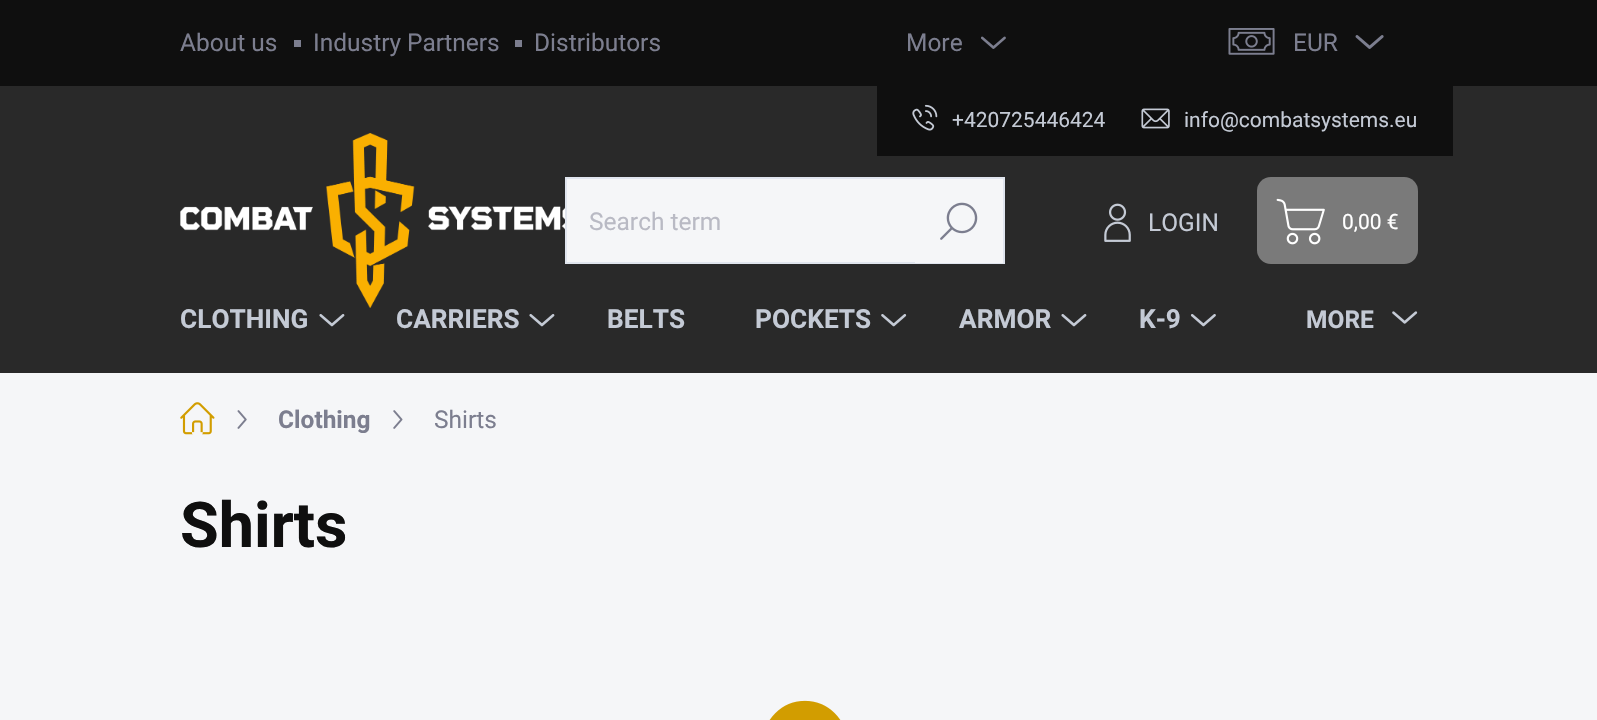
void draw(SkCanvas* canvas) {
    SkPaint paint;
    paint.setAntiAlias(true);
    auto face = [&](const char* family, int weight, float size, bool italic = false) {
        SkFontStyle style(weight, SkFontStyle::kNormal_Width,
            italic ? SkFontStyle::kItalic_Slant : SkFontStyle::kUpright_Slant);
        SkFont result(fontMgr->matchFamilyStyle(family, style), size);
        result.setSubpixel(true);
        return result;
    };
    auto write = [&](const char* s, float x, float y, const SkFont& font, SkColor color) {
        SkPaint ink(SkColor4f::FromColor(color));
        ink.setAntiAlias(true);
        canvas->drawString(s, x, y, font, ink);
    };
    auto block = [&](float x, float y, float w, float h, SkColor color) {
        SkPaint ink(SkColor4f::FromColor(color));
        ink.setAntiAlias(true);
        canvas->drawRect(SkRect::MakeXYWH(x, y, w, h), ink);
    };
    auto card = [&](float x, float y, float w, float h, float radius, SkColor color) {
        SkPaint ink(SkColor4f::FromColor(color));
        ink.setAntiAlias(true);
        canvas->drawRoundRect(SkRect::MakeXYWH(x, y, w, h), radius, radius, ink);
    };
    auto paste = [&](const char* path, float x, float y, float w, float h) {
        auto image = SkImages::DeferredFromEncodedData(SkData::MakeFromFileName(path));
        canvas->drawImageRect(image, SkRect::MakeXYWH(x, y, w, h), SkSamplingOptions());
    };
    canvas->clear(SkColorSetRGB(245, 246, 248));
    block(0, 0, 1597, 86, SkColorSetRGB(15, 15, 15));
    auto kFont1 = face("Roboto", 400, 24.5f);
    write("About us", 180, 51, kFont1, SkColorSetRGB(124, 126, 143));
    block(294, 40, 7, 7, SkColorSetRGB(124, 126, 143));
    write("Industry Partners", 313, 51, kFont1, SkColorSetRGB(124, 126, 143));
    block(515, 40, 7, 7, SkColorSetRGB(124, 126, 143));
    write("Distributors", 534, 51, kFont1, SkColorSetRGB(124, 126, 143));
    write("More", 906, 51, kFont1, SkColorSetRGB(124, 126, 143));
    paste("pic1.png", 981, 36, 25, 13);
    paste("pic2.png", 1228, 28, 47, 27);
    write("EUR", 1293, 51, kFont1, SkColorSetRGB(124, 126, 143));
    paste("pic3.png", 1355, 35, 29, 14);
    block(0, 86, 1597, 287, SkColorSetRGB(41, 41, 41));
    block(877, 86, 576, 70, SkColorSetRGB(15, 15, 15));
    paste("pic4.png", 912, 104, 26, 27);
    auto kFont2 = face("Roboto", 400, 21);
    write("+420725446424", 952, 127, kFont2, SkColorSetRGB(196, 202, 213));
    paste("pic5.png", 1141, 108, 29, 21);
    write("info@combatsystems.eu", 1184, 127, kFont2, SkColorSetRGB(196, 202, 213));
    paste("pic6.png", 180, 133, 385, 175);
    block(567, 179, 348, 83, SkColorSetRGB(245, 246, 248));
    paint.setStyle(SkPaint::kStroke_Style);
    paint.setStrokeWidth(2);
    paint.setColor(SkColorSetRGB(224, 229, 238));
    canvas->drawRect(SkRect::MakeXYWH(566, 178, 438, 85), paint);
    write("Search term", 589, 230, kFont1, SkColorSetRGB(185, 186, 196));
    block(915, 179, 88, 84, SkColorSetRGB(245, 246, 248));
    paste("pic7.png", 940, 202, 38, 38);
    paste("pic8.png", 1104, 203, 27, 39);
    write("LOGIN", 1148, 231, kFont1, SkColorSetRGB(196, 202, 213));
    card(1257, 177, 161, 87, 14, SkColorSetRGB(122, 122, 122));
    paste("pic9.png", 1276, 198, 49, 47);
    write("0,00 €", 1342, 229, kFont2, SK_ColorWHITE);
    auto kFont3 = face("Roboto", 700, 26.25f);
    write("CLOTHING", 180, 328, kFont3, SkColorSetRGB(196, 202, 213));
    paste("pic10.png", 319, 314, 26, 13);
    write("CARRIERS", 396, 328, kFont3, SkColorSetRGB(196, 202, 213));
    paste("pic10.png", 529, 314, 26, 13);
    write("BELTS", 607, 328, kFont3, SkColorSetRGB(196, 202, 213));
    write("POCKETS", 755, 328, kFont3, SkColorSetRGB(196, 202, 213));
    paste("pic11.png", 881, 314, 26, 13);
    write("ARMOR", 959, 328, kFont3, SkColorSetRGB(196, 202, 213));
    paste("pic10.png", 1061, 314, 26, 13);
    write("K-9", 1139, 328, kFont3, SkColorSetRGB(196, 202, 213));
    paste("pic12.png", 1190, 314, 26, 13);
    auto kFont4 = face("Roboto", 700, 24.5f);
    write("MORE", 1306, 328, kFont4, SkColorSetRGB(196, 202, 213));
    paste("pic13.png", 1392, 311, 26, 13);
    paste("pic14.png", 180, 402, 35, 33);
    paste("pic15.png", 237, 410, 10, 19);
    write("Clothing", 278, 428, kFont4, SkColorSetRGB(124, 126, 143));
    paste("pic16.png", 393, 410, 10, 19);
    write("Shirts", 434, 428, kFont1, SkColorSetRGB(124, 126, 143));
    auto kFont5 = face("Roboto", 700, 63);
    write("Shirts", 180, 547, kFont5, SkColorSetRGB(15, 15, 15));
    paste("pic17.png", 769, 700, 72, 20);
}
